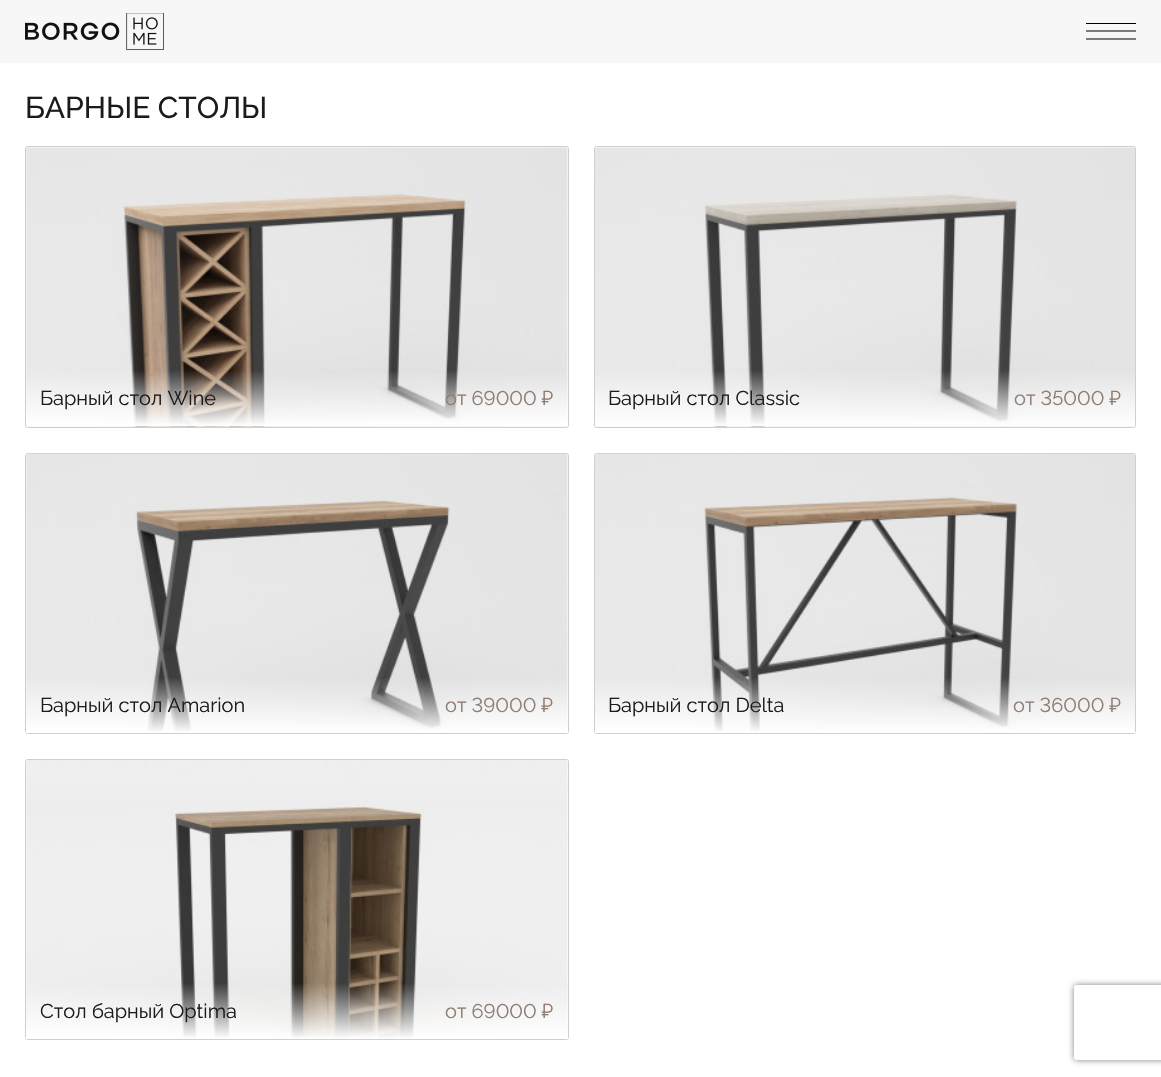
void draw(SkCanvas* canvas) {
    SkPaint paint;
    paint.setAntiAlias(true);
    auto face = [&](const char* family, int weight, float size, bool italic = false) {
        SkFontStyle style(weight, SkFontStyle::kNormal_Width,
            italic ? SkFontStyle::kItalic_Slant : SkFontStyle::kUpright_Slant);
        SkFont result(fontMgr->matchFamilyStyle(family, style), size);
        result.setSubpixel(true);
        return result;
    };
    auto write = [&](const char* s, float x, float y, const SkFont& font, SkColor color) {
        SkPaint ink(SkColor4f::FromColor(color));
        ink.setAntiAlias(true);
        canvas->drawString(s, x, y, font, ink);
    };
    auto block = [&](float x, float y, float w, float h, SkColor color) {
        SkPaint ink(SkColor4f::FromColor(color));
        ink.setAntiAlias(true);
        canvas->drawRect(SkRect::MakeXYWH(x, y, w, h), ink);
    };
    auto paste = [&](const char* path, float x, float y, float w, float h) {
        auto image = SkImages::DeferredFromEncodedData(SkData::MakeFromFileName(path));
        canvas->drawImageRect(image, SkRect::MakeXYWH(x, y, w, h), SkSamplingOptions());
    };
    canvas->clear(SK_ColorWHITE);
    block(0, 0, 1161, 63, SkColorSetRGB(247, 247, 247));
    paste("pic1.png", 25, 13, 139, 37);
    block(1086, 23, 50, 1, SK_ColorBLACK);
    paint.setStyle(SkPaint::kStroke_Style);
    paint.setStrokeWidth(1.2f);
    paint.setColor(SK_ColorBLACK);
    canvas->drawPath(SkPathBuilder().moveTo(1086, 31).lineTo(1136, 31).moveTo(1086, 39).lineTo(1136, 39).detach(), paint);
    auto kFont1 = face("Raleway", 500, 30);
    write("БАРНЫЕ СТОЛЫ", 25, 118, kFont1, SkColorSetRGB(27, 27, 27));
    paint.setStrokeWidth(1);
    paint.setColor(SkColorSetRGB(211, 206, 202));
    canvas->drawRoundRect(SkRect::MakeXYWH(25.5f, 146.5f, 543, 281), 2, 2, paint);
    paste("pic2.png", 26, 147, 542, 280);
    paint.setStyle(SkPaint::kFill_Style);
    {
        const SkColor colors[] = {SkColorSetARGB(0, 255, 255, 255), SK_ColorWHITE};
        const float stops[] = {0.8f, 1};
        const SkPoint ends[] = {{297, 147}, {297, 426}};
        paint.setShader(SkGradientShader::MakeLinear(ends, colors, stops, 2, SkTileMode::kClamp));
        paint.setAlpha(255);
    }
    canvas->drawRect(SkRect::MakeXYWH(26, 371, 542, 55), paint);
    auto kFont2 = face("Raleway", 400, 20);
    write("Барный стол Wine", 40, 405, kFont2, SkColorSetRGB(27, 27, 27));
    auto kFont3 = face("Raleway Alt", 400, 20);
    write("от 69000 ₽", 445, 405, kFont3, SkColorSetRGB(143, 125, 115));
    paint.setStyle(SkPaint::kStroke_Style);
    paint.setShader(nullptr);
    paint.setColor(SkColorSetRGB(211, 206, 202));
    canvas->drawRoundRect(SkRect::MakeXYWH(594.5f, 146.5f, 541, 281), 2, 2, paint);
    paste("pic3.png", 595, 147, 540, 280);
    write("Барный стол Classic", 608, 405, kFont2, SkColorSetRGB(27, 27, 27));
    write("от 35000 ₽", 1014, 405, kFont3, SkColorSetRGB(143, 125, 115));
    canvas->drawRoundRect(SkRect::MakeXYWH(25.5f, 453.5f, 543, 280), 2, 2, paint);
    paste("pic4.png", 26, 453, 542, 280);
    paint.setStyle(SkPaint::kFill_Style);
    {
        const SkColor colors[] = {SkColorSetARGB(0, 255, 255, 255), SK_ColorWHITE};
        const float stops[] = {0.8f, 1};
        const SkPoint ends[] = {{297, 454}, {297, 733}};
        paint.setShader(SkGradientShader::MakeLinear(ends, colors, stops, 2, SkTileMode::kClamp));
        paint.setAlpha(255);
    }
    canvas->drawRect(SkRect::MakeXYWH(26, 678, 542, 55), paint);
    write("Барный стол Amarion", 40, 712, kFont2, SkColorSetRGB(27, 27, 27));
    write("от 39000 ₽", 445, 712, kFont3, SkColorSetRGB(143, 125, 115));
    paint.setStyle(SkPaint::kStroke_Style);
    paint.setShader(nullptr);
    paint.setColor(SkColorSetRGB(211, 206, 202));
    canvas->drawRoundRect(SkRect::MakeXYWH(594.5f, 453.5f, 541, 280), 2, 2, paint);
    paste("pic5.png", 595, 453, 540, 280);
    paint.setStyle(SkPaint::kFill_Style);
    {
        const SkColor colors[] = {SkColorSetARGB(0, 255, 255, 255), SK_ColorWHITE};
        const float stops[] = {0.8f, 1};
        const SkPoint ends[] = {{865, 454}, {865, 733}};
        paint.setShader(SkGradientShader::MakeLinear(ends, colors, stops, 2, SkTileMode::kClamp));
        paint.setAlpha(255);
    }
    canvas->drawRect(SkRect::MakeXYWH(595, 678, 540, 55), paint);
    write("Барный стол Delta", 608, 712, kFont2, SkColorSetRGB(27, 27, 27));
    write("от 36000 ₽", 1013, 712, kFont3, SkColorSetRGB(143, 125, 115));
    paint.setStyle(SkPaint::kStroke_Style);
    paint.setShader(nullptr);
    paint.setColor(SkColorSetRGB(211, 206, 202));
    canvas->drawRoundRect(SkRect::MakeXYWH(25.5f, 759.5f, 543, 280), 2, 2, paint);
    paste("pic6.png", 26, 760, 542, 279);
    paint.setStyle(SkPaint::kFill_Style);
    {
        const SkColor colors[] = {SkColorSetARGB(0, 255, 255, 255), SK_ColorWHITE};
        const float stops[] = {0.8f, 1};
        const SkPoint ends[] = {{297, 760}, {297, 1039}};
        paint.setShader(SkGradientShader::MakeLinear(ends, colors, stops, 2, SkTileMode::kClamp));
        paint.setAlpha(255);
    }
    canvas->drawRect(SkRect::MakeXYWH(26, 984, 542, 55), paint);
    write("Стол барный Optima", 40, 1018, kFont2, SkColorSetRGB(27, 27, 27));
    write("от 69000 ₽", 445, 1018, kFont3, SkColorSetRGB(143, 125, 115));
    canvas->save();
    canvas->clipPath(SkPathBuilder(SkPathFillType::kEvenOdd).moveTo(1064, 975).lineTo(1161, 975).lineTo(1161, 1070).lineTo(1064, 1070).close().moveTo(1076.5f, 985).lineTo(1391.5f, 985).cubicTo(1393, 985, 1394, 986, 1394, 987.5f).lineTo(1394, 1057.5f).cubicTo(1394, 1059, 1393, 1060, 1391.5f, 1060).lineTo(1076.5f, 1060).cubicTo(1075, 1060, 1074, 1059, 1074, 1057.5f).lineTo(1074, 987.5f).cubicTo(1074, 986, 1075, 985, 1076.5f, 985).close().detach(), true);
    paint.setShader(nullptr);
    paint.setColor(SkColorSetRGB(128, 128, 128));
    paint.setMaskFilter(SkMaskFilter::MakeBlur(kNormal_SkBlurStyle, 3));
    canvas->drawRoundRect(SkRect::MakeXYWH(1074, 985, 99, 75), 2.5f, 2.5f, paint);
    paint.setMaskFilter(nullptr);
    canvas->restore();
}
